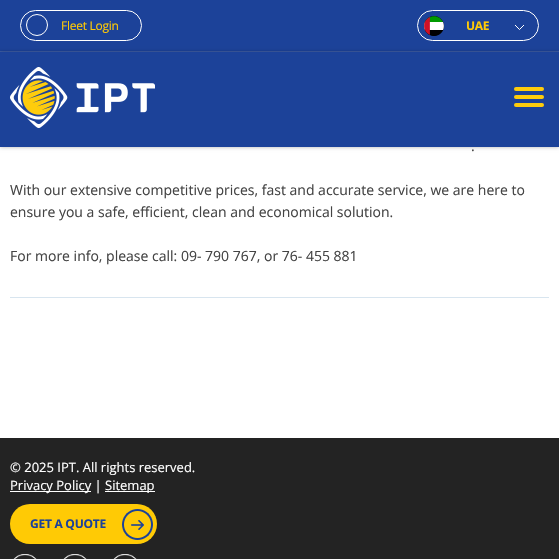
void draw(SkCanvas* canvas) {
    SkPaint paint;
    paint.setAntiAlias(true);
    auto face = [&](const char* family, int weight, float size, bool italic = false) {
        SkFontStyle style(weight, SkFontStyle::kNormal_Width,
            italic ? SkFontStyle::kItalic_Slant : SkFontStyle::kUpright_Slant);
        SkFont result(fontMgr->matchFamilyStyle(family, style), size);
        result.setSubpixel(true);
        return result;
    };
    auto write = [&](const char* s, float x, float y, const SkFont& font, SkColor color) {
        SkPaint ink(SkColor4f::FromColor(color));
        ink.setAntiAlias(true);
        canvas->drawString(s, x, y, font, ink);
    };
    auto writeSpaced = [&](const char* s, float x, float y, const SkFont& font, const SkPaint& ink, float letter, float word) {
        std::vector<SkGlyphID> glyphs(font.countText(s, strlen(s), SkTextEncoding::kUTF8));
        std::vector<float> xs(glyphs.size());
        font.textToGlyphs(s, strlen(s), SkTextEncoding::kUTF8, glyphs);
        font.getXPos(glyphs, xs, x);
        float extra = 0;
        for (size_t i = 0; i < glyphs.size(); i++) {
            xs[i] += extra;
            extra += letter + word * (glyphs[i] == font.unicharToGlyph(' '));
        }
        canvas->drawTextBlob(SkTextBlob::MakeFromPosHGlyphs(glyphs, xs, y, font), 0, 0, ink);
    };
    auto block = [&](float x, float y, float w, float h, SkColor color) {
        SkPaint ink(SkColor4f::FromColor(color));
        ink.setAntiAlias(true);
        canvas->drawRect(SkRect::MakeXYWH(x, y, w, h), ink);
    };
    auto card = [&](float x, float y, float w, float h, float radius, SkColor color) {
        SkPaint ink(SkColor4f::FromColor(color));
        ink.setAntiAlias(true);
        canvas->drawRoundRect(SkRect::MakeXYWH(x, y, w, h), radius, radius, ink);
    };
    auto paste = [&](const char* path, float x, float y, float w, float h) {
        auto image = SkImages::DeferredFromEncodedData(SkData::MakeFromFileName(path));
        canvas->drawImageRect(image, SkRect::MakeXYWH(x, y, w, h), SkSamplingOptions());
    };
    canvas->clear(SK_ColorWHITE);
    block(0, 0, 559, 147, SkColorSetRGB(28, 66, 153));
    block(0, 51, 559, 1, SkColorSetRGB(62, 94, 168));
    paint.setStyle(SkPaint::kStroke_Style);
    paint.setStrokeWidth(1);
    paint.setColor(SK_ColorWHITE);
    canvas->drawRoundRect(SkRect::MakeXYWH(20.5f, 10.5f, 121, 30), 15, 15, paint);
    canvas->drawCircle(37, 25, 10.5f, paint);
    auto kFont1 = face("Open Sans", 400, 12);
    paint.setStyle(SkPaint::kFill_Style);
    paint.setColor(SkColorSetRGB(255, 202, 6));
    writeSpaced("Fleet Login", 61, 30, kFont1, paint, -0.25f, 0);
    paint.setStyle(SkPaint::kStroke_Style);
    paint.setColor(SK_ColorWHITE);
    canvas->drawRoundRect(SkRect::MakeXYWH(417.5f, 10.5f, 121, 30), 15, 15, paint);
    paste("pic1.png", 424, 16, 20, 20);
    auto kFont2 = face("Open Sans", 700, 12);
    paint.setStyle(SkPaint::kFill_Style);
    paint.setColor(SkColorSetRGB(255, 202, 6));
    writeSpaced("UAE", 466, 30, kFont2, paint, -0.25f, 0);
    canvas->save();
    canvas->clipRect(SkRect::MakeXYWH(514, 25, 10, 5));
    paint.setStyle(SkPaint::kStroke_Style);
    paint.setColor(SkColorSetRGB(255, 255, 254));
    canvas->drawPath(SkPathBuilder().moveTo(524, 25).lineTo(519.5f, 29.5f).lineTo(515, 25).detach(), paint);
    canvas->restore();
    canvas->save();
    canvas->clipPath(SkPathBuilder(SkPathFillType::kEvenOdd).moveTo(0, 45).lineTo(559, 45).lineTo(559, 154).lineTo(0, 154).close().moveTo(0, 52).lineTo(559, 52).lineTo(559, 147).lineTo(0, 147).close().detach(), true);
    paint.setStyle(SkPaint::kFill_Style);
    paint.setColor(SkColorSetARGB(77, 0, 0, 0));
    paint.setMaskFilter(SkMaskFilter::MakeBlur(kNormal_SkBlurStyle, 2));
    canvas->drawRect(SkRect::MakeXYWH(0, 52, 559, 95), paint);
    paint.setMaskFilter(nullptr);
    canvas->restore();
    paste("pic2.png", 10, 67, 145, 61);
    card(514, 95, 30, 4, 2, SkColorSetRGB(254, 204, 12));
    card(514, 87, 30, 4, 2, SkColorSetRGB(254, 204, 12));
    card(514, 103, 30, 4, 2, SkColorSetRGB(254, 204, 12));
    block(10, 297, 539, 1, SkColorSetRGB(216, 229, 239));
    auto kFont3 = face("Open Sans", 400, 14);
    write(".", 471, 151, kFont3, SkColorSetRGB(68, 68, 68));
    write("With our extensive competitive prices, fast and accurate service, we are here to", 10, 195, kFont3, SkColorSetRGB(68, 68, 68));
    write("ensure you a safe, efficient, clean and economical solution.", 10, 217, kFont3, SkColorSetRGB(68, 68, 68));
    write("For more info, please call: 09- 790 767, or 76- 455 881", 10, 261, kFont3, SkColorSetRGB(68, 68, 68));
    block(0, 438, 559, 121, SkColorSetRGB(35, 35, 35));
    auto kFont4 = face("Open Sans", 400, 13);
    write("© 2025 IPT. All rights reserved.", 10, 472, kFont4, SK_ColorWHITE);
    block(10, 491, 81, 1, SK_ColorWHITE);
    write("Privacy Policy |", 10, 490, kFont4, SK_ColorWHITE);
    block(105, 491, 50, 1, SK_ColorWHITE);
    write("Sitemap", 105, 490, kFont4, SK_ColorWHITE);
    card(10, 504, 147, 40, 20, SkColorSetRGB(255, 202, 5));
    paint.setColor(SkColorSetRGB(28, 66, 153));
    writeSpaced("GET A QUOTE", 30, 528, kFont2, paint, -0.25f, 0);
    paste("pic3.png", 122, 509, 31, 31);
    paste("pic4.png", 13, 554, 24, 5);
    paste("pic5.png", 63, 554, 24, 5);
    paste("pic6.png", 113, 554, 24, 5);
}
